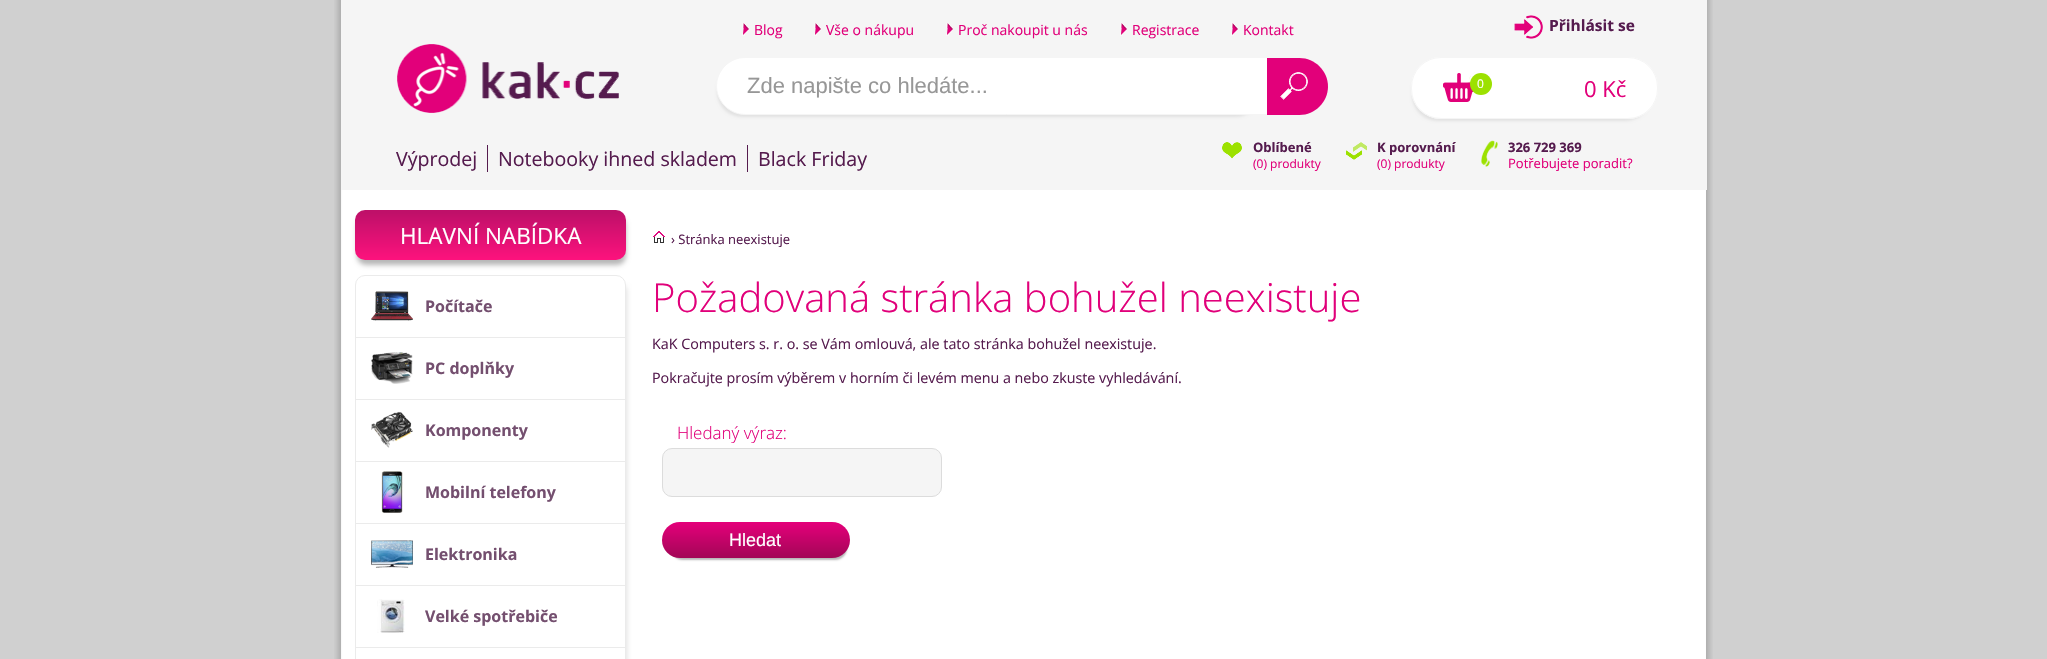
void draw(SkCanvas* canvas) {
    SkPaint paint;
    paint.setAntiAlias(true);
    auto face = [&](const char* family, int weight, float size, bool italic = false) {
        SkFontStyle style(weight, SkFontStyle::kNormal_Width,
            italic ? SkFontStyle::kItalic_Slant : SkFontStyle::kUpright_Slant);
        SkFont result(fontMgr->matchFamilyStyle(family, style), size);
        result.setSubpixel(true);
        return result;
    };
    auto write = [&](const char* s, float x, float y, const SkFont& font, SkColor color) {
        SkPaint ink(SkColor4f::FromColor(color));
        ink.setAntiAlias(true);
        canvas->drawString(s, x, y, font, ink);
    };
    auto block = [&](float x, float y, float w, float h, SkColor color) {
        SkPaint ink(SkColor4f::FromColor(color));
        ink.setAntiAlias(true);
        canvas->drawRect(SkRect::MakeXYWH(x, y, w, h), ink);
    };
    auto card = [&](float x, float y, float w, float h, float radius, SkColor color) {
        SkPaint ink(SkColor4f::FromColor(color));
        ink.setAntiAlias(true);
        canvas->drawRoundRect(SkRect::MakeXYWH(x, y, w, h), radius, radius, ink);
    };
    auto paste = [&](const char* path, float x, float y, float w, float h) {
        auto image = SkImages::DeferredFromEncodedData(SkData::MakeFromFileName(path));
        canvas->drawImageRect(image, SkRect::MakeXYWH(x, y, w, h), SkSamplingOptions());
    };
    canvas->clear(SkColorSetRGB(208, 208, 208));
    paste("pic1.png", 334, 0, 1379, 659);
    block(341, 0, 1366, 190, SkColorSetRGB(245, 245, 245));
    paste("pic2.png", 742, 23, 7, 13);
    auto kFont1 = face("Open Sans", 400, 14);
    write("Blog", 754, 35, kFont1, SkColorSetRGB(225, 0, 122));
    paste("pic2.png", 814, 23, 7, 13);
    write("Vše o nákupu", 826, 35, kFont1, SkColorSetRGB(225, 0, 122));
    paste("pic2.png", 946, 23, 7, 13);
    write("Proč nakoupit u nás", 958, 35, kFont1, SkColorSetRGB(225, 0, 122));
    paste("pic2.png", 1120, 23, 7, 13);
    write("Registrace", 1132, 35, kFont1, SkColorSetRGB(225, 0, 122));
    paste("pic2.png", 1231, 23, 7, 13);
    write("Kontakt", 1243, 35, kFont1, SkColorSetRGB(225, 0, 122));
    paste("pic3.png", 1514, 15, 29, 24);
    auto kFont2 = face("Open Sans", 700, 15.5f);
    write("Přihlásit se", 1549, 31, kFont2, SkColorSetRGB(85, 27, 78));
    paste("pic4.png", 397, 44, 222, 69);
    paint.setColor(SkColorSetRGB(226, 226, 226));
    paint.setMaskFilter(SkMaskFilter::MakeBlur(kNormal_SkBlurStyle, 1.5f));
    canvas->drawRoundRect(SkRect::MakeXYWH(717, 67, 544, 50), 25, 25, paint);
    paint.setMaskFilter(nullptr);
    paint.setColor(SK_ColorWHITE);
    canvas->drawPath(SkPathBuilder().moveTo(745, 57.5f).lineTo(1267.5f, 57.5f).lineTo(1267.5f, 114.5f).lineTo(745, 114.5f).cubicTo(729.5f, 114.5f, 716.5f, 101.5f, 716.5f, 86).cubicTo(716.5f, 70.5f, 729.5f, 57.5f, 745, 57.5f).close().detach(), paint);
    paint.setStyle(SkPaint::kStroke_Style);
    paint.setStrokeWidth(1);
    paint.setColor(SkColorSetRGB(245, 245, 245));
    canvas->drawPath(SkPathBuilder().moveTo(745, 57.5f).lineTo(1267.5f, 57.5f).lineTo(1267.5f, 114.5f).lineTo(745, 114.5f).cubicTo(729.5f, 114.5f, 716.5f, 101.5f, 716.5f, 86).cubicTo(716.5f, 70.5f, 729.5f, 57.5f, 745, 57.5f).close().detach(), paint);
    auto kFont3 = face("Liberation Sans", 400, 22);
    write("Zde napište co hledáte...", 747, 93, kFont3, SkColorSetRGB(151, 151, 151));
    paint.setStyle(SkPaint::kFill_Style);
    paint.setColor(SkColorSetRGB(226, 0, 122));
    canvas->drawPath(SkPathBuilder().moveTo(1267, 58).lineTo(1299.5f, 58).cubicTo(1315, 58, 1328, 71, 1328, 86.5f).cubicTo(1328, 102, 1315, 115, 1299.5f, 115).lineTo(1267, 115).close().detach(), paint);
    paste("pic5.png", 1280, 72, 28, 28);
    paint.setColor(SkColorSetRGB(226, 226, 226));
    paint.setMaskFilter(SkMaskFilter::MakeBlur(kNormal_SkBlurStyle, 1.5f));
    canvas->drawRoundRect(SkRect::MakeXYWH(1412, 67, 239, 54), 26, 26, paint);
    paint.setMaskFilter(nullptr);
    card(1411, 57, 247, 62, 30, SK_ColorWHITE);
    paste("pic6.png", 1443, 72, 34, 30);
    paint.setStyle(SkPaint::kStroke_Style);
    paint.setColor(SkColorSetRGB(245, 245, 245));
    canvas->drawRoundRect(SkRect::MakeXYWH(1411.5f, 57.5f, 246, 61), 29.5f, 29.5f, paint);
    paint.setStyle(SkPaint::kFill_Style);
    paint.setColor(SkColorSetRGB(156, 225, 0));
    canvas->drawCircle(1481, 84, 11, paint);
    auto kFont4 = face("Open Sans", 400, 12);
    write("0", 1477, 88, kFont4, SK_ColorWHITE);
    auto kFont5 = face("Open Sans", 400, 22);
    write("0 Kč", 1584, 97, kFont5, SkColorSetRGB(225, 0, 122));
    block(487, 145, 1, 27, SkColorSetRGB(85, 27, 78));
    auto kFont6 = face("Open Sans", 400, 19.6f);
    write("Výprodej", 396, 166, kFont6, SkColorSetRGB(85, 27, 78));
    block(747, 145, 1, 27, SkColorSetRGB(85, 27, 78));
    write("Notebooky ihned skladem", 498, 166, kFont6, SkColorSetRGB(85, 27, 78));
    write("Black Friday", 758, 166, kFont6, SkColorSetRGB(85, 27, 78));
    paste("pic7.png", 1222, 142, 20, 17);
    auto kFont7 = face("Open Sans", 700, 13);
    write("Oblíbené", 1253, 152, kFont7, SkColorSetRGB(85, 27, 78));
    write("(0) produkty", 1253, 168, kFont4, SkColorSetRGB(225, 0, 122));
    paste("pic8.png", 1346, 142, 21, 18);
    write("K porovnání", 1377, 152, kFont7, SkColorSetRGB(85, 27, 78));
    write("(0) produkty", 1377, 168, kFont4, SkColorSetRGB(225, 0, 122));
    paste("pic9.png", 1481, 140, 17, 27);
    write("326 729 369", 1508, 152, kFont7, SkColorSetRGB(85, 27, 78));
    auto kFont8 = face("Open Sans", 400, 13);
    write("Potřebujete poradit?", 1508, 168, kFont8, SkColorSetRGB(225, 0, 122));
    paint.setColor(SkColorSetRGB(183, 183, 183));
    paint.setMaskFilter(SkMaskFilter::MakeBlur(kNormal_SkBlurStyle, 2.5f));
    canvas->drawRoundRect(SkRect::MakeXYWH(357, 217, 269, 48), 9, 9, paint);
    paint.setMaskFilter(nullptr);
    {
        const SkColor colors[] = {SkColorSetRGB(191, 16, 105), SkColorSetRGB(253, 18, 125)};
        const float stops[] = {0.05f, 1};
        const SkPoint ends[] = {{491, 210}, {491, 260}};
        paint.setShader(SkGradientShader::MakeLinear(ends, colors, stops, 2, SkTileMode::kClamp));
        paint.setAlpha(255);
    }
    canvas->drawRoundRect(SkRect::MakeXYWH(355, 210, 271, 50), 10, 10, paint);
    auto kFont9 = face("Open Sans", 400, 22.5f);
    write("HLAVNÍ NABÍDKA", 400, 244, kFont9, SK_ColorWHITE);
    canvas->save();
    canvas->clipRect(SkRect::MakeXYWH(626, 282, 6, 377));
    paint.setShader(nullptr);
    paint.setColor(SkColorSetRGB(226, 226, 226));
    paint.setMaskFilter(SkMaskFilter::MakeBlur(kNormal_SkBlurStyle, 2.5f));
    canvas->drawRoundRect(SkRect::MakeXYWH(364, 285, 263, 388), 6, 6, paint);
    paint.setMaskFilter(nullptr);
    canvas->restore();
    paint.setStyle(SkPaint::kStroke_Style);
    paint.setColor(SkColorSetRGB(235, 235, 235));
    canvas->drawRoundRect(SkRect::MakeXYWH(355.5f, 275.5f, 270, 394), 9.5f, 9.5f, paint);
    block(356, 337, 269, 1, SkColorSetRGB(235, 235, 235));
    paste("pic10.png", 371, 291, 42, 30);
    auto kFont10 = face("Open Sans", 700, 16);
    write("Počítače", 425, 312, kFont10, SkColorSetRGB(116, 79, 111));
    block(356, 399, 269, 1, SkColorSetRGB(235, 235, 235));
    paste("pic11.png", 371, 352, 42, 32);
    write("PC doplňky", 425, 374, kFont10, SkColorSetRGB(116, 79, 111));
    block(356, 461, 269, 1, SkColorSetRGB(235, 235, 235));
    paste("pic12.png", 371, 411, 42, 37);
    write("Komponenty", 425, 436, kFont10, SkColorSetRGB(116, 79, 111));
    block(356, 523, 269, 1, SkColorSetRGB(235, 235, 235));
    paste("pic13.png", 381, 471, 22, 42);
    write("Mobilní telefony", 425, 498, kFont10, SkColorSetRGB(116, 79, 111));
    block(356, 585, 269, 1, SkColorSetRGB(235, 235, 235));
    paste("pic14.png", 371, 540, 42, 28);
    write("Elektronika", 425, 560, kFont10, SkColorSetRGB(116, 79, 111));
    block(356, 647, 269, 1, SkColorSetRGB(235, 235, 235));
    paste("pic15.png", 377, 599, 28, 34);
    write("Velké spotřebiče", 425, 622, kFont10, SkColorSetRGB(116, 79, 111));
    paste("pic16.png", 653, 231, 12, 12);
    write("› Stránka neexistuje", 671, 244, kFont8, SkColorSetRGB(85, 27, 78));
    auto kFont11 = face("Open Sans", 300, 40);
    write("Požadovaná stránka bohužel neexistuje", 652, 312, kFont11, SkColorSetRGB(225, 0, 122));
    auto kFont12 = face("Open Sans", 400, 14.3f);
    write("KaK Computers s. r. o. se Vám omlouvá, ale tato stránka bohužel neexistuje.", 652, 349, kFont12, SkColorSetRGB(85, 27, 78));
    write("Pokračujte prosím výběrem v horním či levém menu a nebo zkuste vyhledávání.", 652, 383, kFont12, SkColorSetRGB(85, 27, 78));
    auto kFont13 = face("Open Sans", 300, 17);
    write("Hledaný výraz:", 677, 439, kFont13, SkColorSetRGB(225, 0, 122));
    paint.setStyle(SkPaint::kFill_Style);
    paint.setColor(SkColorSetRGB(245, 245, 245));
    canvas->drawRoundRect(SkRect::MakeXYWH(662.5f, 448.5f, 279, 48), 9.5f, 9.5f, paint);
    paint.setStyle(SkPaint::kStroke_Style);
    paint.setColor(SkColorSetRGB(220, 220, 220));
    canvas->drawRoundRect(SkRect::MakeXYWH(662.5f, 448.5f, 279, 48), 9.5f, 9.5f, paint);
    paint.setStyle(SkPaint::kFill_Style);
    paint.setColor(SkColorSetRGB(183, 183, 183));
    paint.setMaskFilter(SkMaskFilter::MakeBlur(kNormal_SkBlurStyle, 1));
    canvas->drawRoundRect(SkRect::MakeXYWH(671, 536, 176, 24), 12, 12, paint);
    paint.setMaskFilter(nullptr);
    {
        const SkColor colors[] = {SkColorSetRGB(226, 0, 121), SkColorSetRGB(162, 6, 86)};
        const float stops[] = {0.05f, 1};
        const SkPoint ends[] = {{756, 522}, {756, 558}};
        paint.setShader(SkGradientShader::MakeLinear(ends, colors, stops, 2, SkTileMode::kClamp));
        paint.setAlpha(255);
    }
    canvas->drawRoundRect(SkRect::MakeXYWH(662, 522, 188, 36), 18, 18, paint);
    auto kFont14 = face("Liberation Sans", 400, 18);
    write("Hledat", 729, 546, kFont14, SK_ColorWHITE);
}
